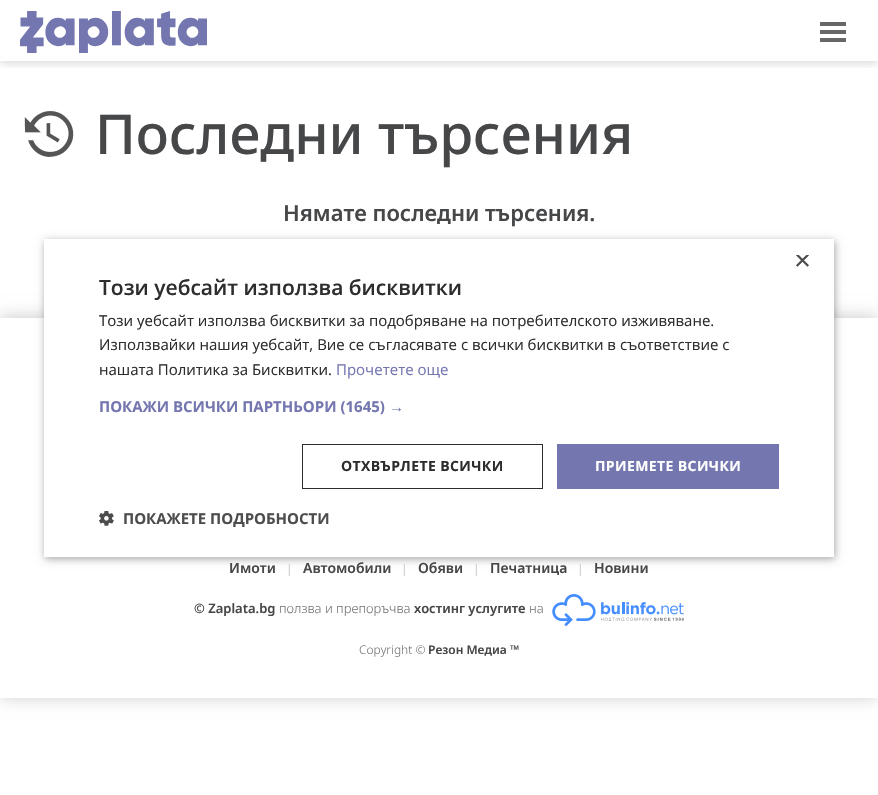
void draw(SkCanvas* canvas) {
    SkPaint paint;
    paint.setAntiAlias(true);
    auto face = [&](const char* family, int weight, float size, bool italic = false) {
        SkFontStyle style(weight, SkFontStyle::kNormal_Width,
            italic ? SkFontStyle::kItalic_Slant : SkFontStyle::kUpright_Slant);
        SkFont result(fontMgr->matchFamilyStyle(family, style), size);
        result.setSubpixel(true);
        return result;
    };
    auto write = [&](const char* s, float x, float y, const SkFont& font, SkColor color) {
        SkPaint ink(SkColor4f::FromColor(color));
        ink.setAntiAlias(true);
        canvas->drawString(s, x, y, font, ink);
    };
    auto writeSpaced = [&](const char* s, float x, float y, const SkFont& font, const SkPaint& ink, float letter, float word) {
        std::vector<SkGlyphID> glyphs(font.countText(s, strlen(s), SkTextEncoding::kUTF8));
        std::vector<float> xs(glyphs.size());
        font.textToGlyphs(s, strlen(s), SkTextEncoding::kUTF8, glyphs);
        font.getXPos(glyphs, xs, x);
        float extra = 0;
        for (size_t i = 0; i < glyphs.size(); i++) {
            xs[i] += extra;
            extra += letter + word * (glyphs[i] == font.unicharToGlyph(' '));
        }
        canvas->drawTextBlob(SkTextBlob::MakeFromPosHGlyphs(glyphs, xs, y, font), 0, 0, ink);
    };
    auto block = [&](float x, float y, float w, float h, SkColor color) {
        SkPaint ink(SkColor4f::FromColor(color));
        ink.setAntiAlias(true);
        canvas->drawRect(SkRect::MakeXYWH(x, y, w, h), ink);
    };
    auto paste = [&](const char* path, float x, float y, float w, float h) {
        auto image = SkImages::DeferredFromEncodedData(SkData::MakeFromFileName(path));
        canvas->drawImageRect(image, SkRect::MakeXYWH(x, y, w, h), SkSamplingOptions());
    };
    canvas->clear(SK_ColorWHITE);
    canvas->save();
    canvas->clipRect(SkRect::MakeXYWH(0, 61, 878, 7));
    paint.setColor(SkColorSetARGB(48, 0, 0, 0));
    paint.setMaskFilter(SkMaskFilter::MakeBlur(kNormal_SkBlurStyle, 5));
    canvas->drawRect(SkRect::MakeXYWH(0, 1, 878, 61), paint);
    paint.setMaskFilter(nullptr);
    canvas->restore();
    paste("pic1.png", 20, 11, 187, 42);
    block(820, 22, 26, 4, SkColorSetRGB(102, 103, 102));
    block(820, 38, 26, 4, SkColorSetRGB(102, 103, 102));
    block(820, 30, 26, 4, SkColorSetRGB(102, 103, 102));
    paste("pic2.png", 24, 111, 50, 46);
    auto kFont1 = face("Noto Sans", 500, 55);
    write("Последни търсения", 95, 154, kFont1, SkColorSetRGB(70, 71, 73));
    auto kFont2 = face("Noto Sans", 600, 22);
    write("Нямате последни търсения.", 283, 221, kFont2, SkColorSetRGB(70, 71, 73));
    paint.setColor(SkColorSetARGB(89, 0, 0, 0));
    paint.setMaskFilter(SkMaskFilter::MakeBlur(kNormal_SkBlurStyle, 4));
    canvas->drawRect(SkRect::MakeXYWH(45, 241, 790, 318), paint);
    paint.setMaskFilter(nullptr);
    canvas->save();
    canvas->clipPath(SkPathBuilder(SkPathFillType::kEvenOdd).moveTo(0, 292).lineTo(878, 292).lineTo(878, 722).lineTo(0, 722).close().moveTo(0, 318).lineTo(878, 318).lineTo(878, 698).lineTo(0, 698).close().detach(), true);
    paint.setColor(SkColorSetARGB(51, 0, 0, 0));
    paint.setMaskFilter(SkMaskFilter::MakeBlur(kNormal_SkBlurStyle, 8));
    canvas->drawRect(SkRect::MakeXYWH(0, 317, 878, 380), paint);
    paint.setMaskFilter(nullptr);
    canvas->restore();
    block(44, 239, 790, 318, SK_ColorWHITE);
    canvas->save();
    canvas->clipRect(SkRect::MakeXYWH(794, 255, 15, 15));
    auto kFont3 = face("Liberation Sans", 400, 29);
    write("×", 794, 270, kFont3, SkColorSetRGB(77, 77, 77));
    canvas->restore();
    auto kFont4 = face("Open Sans", 600, 21);
    write("Този уебсайт използва бисквитки", 99, 295, kFont4, SkColorSetRGB(45, 45, 45));
    auto kFont5 = face("Open Sans", 400, 15);
    write("Този уебсайт използва бисквитки за подобряване на потребителското изживяване.", 99, 326, kFont5, SkColorSetRGB(45, 45, 45));
    write("Използвайки нашия уебсайт, Вие се съгласявате с всички бисквитки в съответствие с", 99, 350, kFont5, SkColorSetRGB(45, 45, 45));
    write("нашата Политика за Бисквитки.", 99, 375, kFont5, SkColorSetRGB(45, 45, 45));
    write("Прочетете още", 336, 375, kFont5, SkColorSetRGB(116, 119, 175));
    auto kFont6 = face("Open Sans", 700, 15);
    write("ПОКАЖИ ВСИЧКИ ПАРТНЬОРИ (1645)", 99, 412, kFont6, SkColorSetRGB(116, 119, 175));
    auto kFont7 = face("Liberation Sans", 700, 15);
    write("→", 389, 412, kFont7, SkColorSetRGB(116, 119, 175));
    paint.setStyle(SkPaint::kStroke_Style);
    paint.setStrokeWidth(1);
    paint.setColor(SkColorSetRGB(45, 45, 45));
    canvas->drawRect(SkRect::MakeXYWH(302.5f, 444.5f, 240, 44), paint);
    auto kFont8 = face("Open Sans", 700, 14);
    paint.setStyle(SkPaint::kFill_Style);
    writeSpaced("ОТХВЪРЛЕТЕ ВСИЧКИ", 341, 471, kFont8, paint, 0.4f, 0);
    block(557, 444, 222, 45, SkColorSetRGB(116, 119, 175));
    paint.setColor(SK_ColorWHITE);
    writeSpaced("ПРИЕМЕТЕ ВСИЧКИ", 595, 471, kFont8, paint, 0.4f, 0);
    paste("pic3.png", 99, 511, 15, 15);
    write("ПОКАЖЕТЕ ПОДРОБНОСТИ", 123, 524, kFont6, SkColorSetRGB(77, 77, 77));
    auto kFont9 = face("Noto Sans", 600, 14);
    write("Имоти", 229, 573, kFont9, SkColorSetRGB(70, 71, 73));
    auto kFont10 = face("Noto Sans", 400, 12);
    write("|", 286, 573, kFont10, SkColorSetRGB(204, 204, 204));
    write("Автомобили", 303, 573, kFont9, SkColorSetRGB(70, 71, 73));
    write("|", 401, 573, kFont10, SkColorSetRGB(204, 204, 204));
    write("Обяви", 418, 573, kFont9, SkColorSetRGB(70, 71, 73));
    write("|", 473, 573, kFont10, SkColorSetRGB(204, 204, 204));
    write("Печатница", 490, 573, kFont9, SkColorSetRGB(70, 71, 73));
    write("|", 577, 573, kFont10, SkColorSetRGB(204, 204, 204));
    write("Новини", 594, 573, kFont9, SkColorSetRGB(70, 71, 73));
    auto kFont11 = face("Noto Sans", 600, 13);
    write("© Zaplata.bg", 194, 613, kFont11, SkColorSetRGB(70, 71, 73));
    auto kFont12 = face("Noto Sans", 300, 13);
    write("ползва и препоръчва", 279, 613, kFont12, SkColorSetRGB(119, 119, 119));
    write("хостинг услугите", 414, 613, kFont11, SkColorSetRGB(70, 71, 73));
    write("на", 529, 613, kFont12, SkColorSetRGB(119, 119, 119));
    paste("pic4.png", 552, 594, 132, 32);
    auto kFont13 = face("Noto Sans", 300, 12);
    write("Copyright ©", 359, 654, kFont13, SkColorSetRGB(119, 119, 119));
    auto kFont14 = face("Noto Sans", 600, 12);
    write("Резон Медиа ™", 428, 654, kFont14, SkColorSetRGB(70, 71, 73));
}
